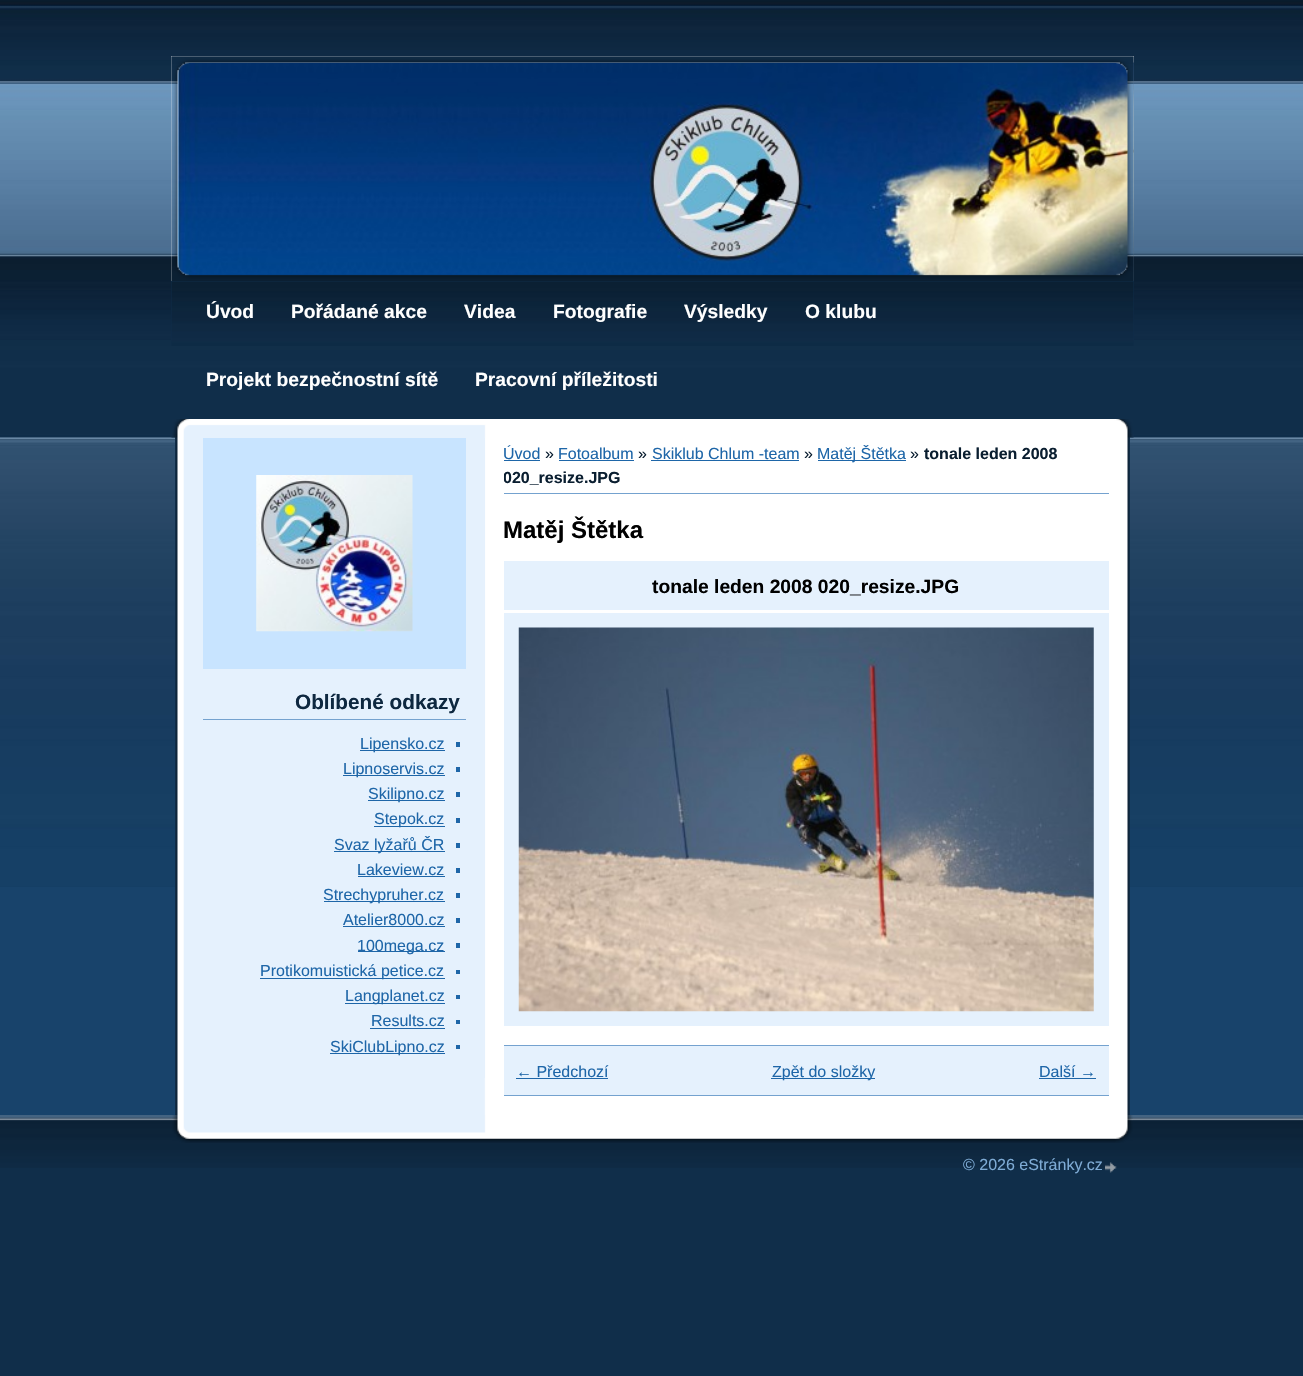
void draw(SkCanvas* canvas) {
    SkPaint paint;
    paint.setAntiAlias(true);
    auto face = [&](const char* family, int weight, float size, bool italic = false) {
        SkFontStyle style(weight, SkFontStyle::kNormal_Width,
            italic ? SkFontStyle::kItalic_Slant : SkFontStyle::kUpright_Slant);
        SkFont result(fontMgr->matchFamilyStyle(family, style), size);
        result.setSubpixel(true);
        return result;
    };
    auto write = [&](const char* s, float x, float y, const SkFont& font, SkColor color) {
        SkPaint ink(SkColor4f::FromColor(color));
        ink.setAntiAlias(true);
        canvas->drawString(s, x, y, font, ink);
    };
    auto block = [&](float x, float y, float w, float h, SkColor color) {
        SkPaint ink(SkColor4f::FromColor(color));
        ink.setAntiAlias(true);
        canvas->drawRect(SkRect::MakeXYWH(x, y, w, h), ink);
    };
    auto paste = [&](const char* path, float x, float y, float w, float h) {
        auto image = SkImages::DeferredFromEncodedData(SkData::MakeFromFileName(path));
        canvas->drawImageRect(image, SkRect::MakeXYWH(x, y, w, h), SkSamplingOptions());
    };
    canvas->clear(SkColorSetRGB(16, 46, 74));
    block(0, 887, 1303, 228, SkColorSetRGB(24, 67, 107));
    paste("pic1.png", 0, 0, 1303, 887);
    block(171, 56, 963, 225, SK_ColorWHITE);
    paste("pic2.png", 177, 62, 957, 219);
    paste("pic3.png", 171, 56, 963, 225);
    paste("pic4.png", 175, 437, 955, 678);
    block(171, 281, 963, 59, SkColorSetRGB(16, 46, 74));
    paste("pic5.png", 171, 281, 963, 65);
    auto kFont1 = face("Liberation Sans", 700, 19.25f);
    write("Úvod", 206, 318, kFont1, SK_ColorWHITE);
    write("Pořádané akce", 291, 318, kFont1, SK_ColorWHITE);
    write("Videa", 464, 318, kFont1, SK_ColorWHITE);
    write("Fotografie", 553, 318, kFont1, SK_ColorWHITE);
    write("Výsledky", 684, 318, kFont1, SK_ColorWHITE);
    write("O klubu", 805, 318, kFont1, SK_ColorWHITE);
    write("Projekt bezpečnostní sítě", 206, 386, kFont1, SK_ColorWHITE);
    write("Pracovní příležitosti", 475, 386, kFont1, SK_ColorWHITE);
    paste("pic6.png", 171, 419, 963, 19);
    block(484, 438, 1, 640, SkColorSetRGB(229, 241, 253));
    block(203, 438, 263, 231, SkColorSetRGB(200, 228, 255));
    paste("pic7.png", 256, 475, 157, 157);
    block(203, 719, 263, 1, SkColorSetRGB(116, 162, 207));
    auto kFont2 = face("Liberation Sans", 700, 20.75f);
    write("Oblíbené odkazy", 295, 709, kFont2, SkColorSetRGB(14, 40, 64));
    block(456, 742, 4, 5, SkColorSetRGB(30, 102, 168));
    block(360, 750, 85, 1, SkColorSetRGB(30, 102, 168));
    auto kFont3 = face("Liberation Sans", 400, 16);
    write("Lipensko.cz", 360, 749, kFont3, SkColorSetRGB(30, 102, 168));
    block(456, 767, 4, 5, SkColorSetRGB(30, 102, 168));
    block(343, 775, 102, 1, SkColorSetRGB(30, 102, 168));
    write("Lipnoservis.cz", 343, 774, kFont3, SkColorSetRGB(30, 102, 168));
    block(456, 792, 4, 5, SkColorSetRGB(30, 102, 168));
    block(368, 800, 77, 1, SkColorSetRGB(30, 102, 168));
    write("Skilipno.cz", 368, 799, kFont3, SkColorSetRGB(30, 102, 168));
    block(456, 818, 4, 5, SkColorSetRGB(30, 102, 168));
    block(374, 826, 71, 1, SkColorSetRGB(30, 102, 168));
    write("Stepok.cz", 374, 824, kFont3, SkColorSetRGB(30, 102, 168));
    block(456, 843, 4, 5, SkColorSetRGB(30, 102, 168));
    block(334, 851, 111, 1, SkColorSetRGB(30, 102, 168));
    write("Svaz lyžařů ČR", 334, 850, kFont3, SkColorSetRGB(30, 102, 168));
    block(456, 868, 4, 5, SkColorSetRGB(30, 102, 168));
    write("Lakeview.cz", 357, 875, kFont3, SkColorSetRGB(30, 102, 168));
    block(358, 876, 87, 1, SkColorSetRGB(30, 102, 168));
    block(456, 893, 4, 5, SkColorSetRGB(30, 102, 168));
    block(324, 901, 121, 1, SkColorSetRGB(30, 102, 168));
    write("Strechypruher.cz", 323, 900, kFont3, SkColorSetRGB(30, 102, 168));
    block(456, 918, 4, 5, SkColorSetRGB(30, 102, 168));
    write("Atelier8000.cz", 343, 925, kFont3, SkColorSetRGB(30, 102, 168));
    block(343, 926, 102, 1, SkColorSetRGB(30, 102, 168));
    block(456, 943, 4, 5, SkColorSetRGB(30, 102, 168));
    block(358, 951, 87, 1, SkColorSetRGB(30, 102, 168));
    write("100mega.cz", 357, 951, kFont3, SkColorSetRGB(30, 102, 168));
    block(456, 970, 4, 4, SkColorSetRGB(30, 102, 168));
    block(260, 978, 185, 1, SkColorSetRGB(30, 102, 168));
    write("Protikomuistická petice.cz", 260, 976, kFont3, SkColorSetRGB(30, 102, 168));
    block(456, 995, 4, 4, SkColorSetRGB(30, 102, 168));
    block(345, 1003, 100, 1, SkColorSetRGB(30, 102, 168));
    write("Langplanet.cz", 345, 1001, kFont3, SkColorSetRGB(30, 102, 168));
    block(456, 1020, 4, 4, SkColorSetRGB(30, 102, 168));
    write("Results.cz", 371, 1026, kFont3, SkColorSetRGB(30, 102, 168));
    block(370, 1028, 75, 1, SkColorSetRGB(30, 102, 168));
    block(456, 1045, 4, 4, SkColorSetRGB(30, 102, 168));
    block(330, 1053, 115, 1, SkColorSetRGB(30, 102, 168));
    write("SkiClubLipno.cz", 330, 1052, kFont3, SkColorSetRGB(30, 102, 168));
    block(504, 493, 605, 1, SkColorSetRGB(116, 162, 207));
    write("Úvod", 503, 459, kFont3, SkColorSetRGB(30, 102, 168));
    block(504, 460, 36, 1, SkColorSetRGB(30, 102, 168));
    write("»", 545, 459, kFont3, SkColorSetRGB(10, 30, 48));
    write("Fotoalbum", 558, 459, kFont3, SkColorSetRGB(30, 102, 168));
    block(559, 460, 75, 1, SkColorSetRGB(30, 102, 168));
    write("»", 638, 459, kFont3, SkColorSetRGB(10, 30, 48));
    write("Skiklub Chlum -team", 652, 459, kFont3, SkColorSetRGB(30, 102, 168));
    block(651, 460, 148, 1, SkColorSetRGB(30, 102, 168));
    write("»", 804, 459, kFont3, SkColorSetRGB(10, 30, 48));
    block(818, 460, 88, 1, SkColorSetRGB(30, 102, 168));
    write("Matěj Štětka", 817, 459, kFont3, SkColorSetRGB(30, 102, 168));
    write("»", 910, 459, kFont3, SkColorSetRGB(10, 30, 48));
    auto kFont4 = face("Liberation Sans", 700, 16);
    write("tonale leden 2008", 924, 459, kFont4, SkColorSetRGB(10, 30, 48));
    canvas->save();
    canvas->clipRect(SkRect::MakeXYWH(504, 438, 605, 677));
    write("020_resize.JPG", 503, 483, kFont4, SkColorSetRGB(10, 30, 48));
    canvas->restore();
    auto kFont5 = face("Liberation Sans", 700, 24);
    write("Matěj Štětka", 503, 538, kFont5, SK_ColorBLACK);
    block(504, 561, 605, 49, SkColorSetRGB(229, 241, 253));
    write("tonale leden 2008 020_resize.JPG", 652, 593, kFont1, SK_ColorBLACK);
    block(504, 613, 605, 413, SkColorSetRGB(229, 241, 253));
    paste("pic8.png", 518, 627, 576, 385);
    block(504, 1046, 605, 49, SkColorSetRGB(229, 241, 253));
    block(504, 1045, 605, 1, SkColorSetRGB(116, 162, 207));
    block(504, 1095, 605, 1, SkColorSetRGB(116, 162, 207));
    write("← Předchozí", 516, 1077, kFont3, SkColorSetRGB(30, 102, 168));
    block(516, 1078, 92, 1, SkColorSetRGB(30, 102, 168));
    block(771, 1078, 104, 1, SkColorSetRGB(30, 102, 168));
    write("Zpět do složky", 772, 1077, kFont3, SkColorSetRGB(30, 102, 168));
    write("Další →", 1039, 1077, kFont3, SkColorSetRGB(30, 102, 168));
    block(1039, 1078, 57, 1, SkColorSetRGB(30, 102, 168));
    paste("pic9.png", 0, 1115, 1303, 53);
    paste("pic10.png", 172, 1115, 961, 28);
    write("© 2026 eStránky.cz", 963, 1170, kFont3, SkColorSetRGB(126, 171, 213));
    paste("pic11.png", 1105, 1162, 12, 11);
}
